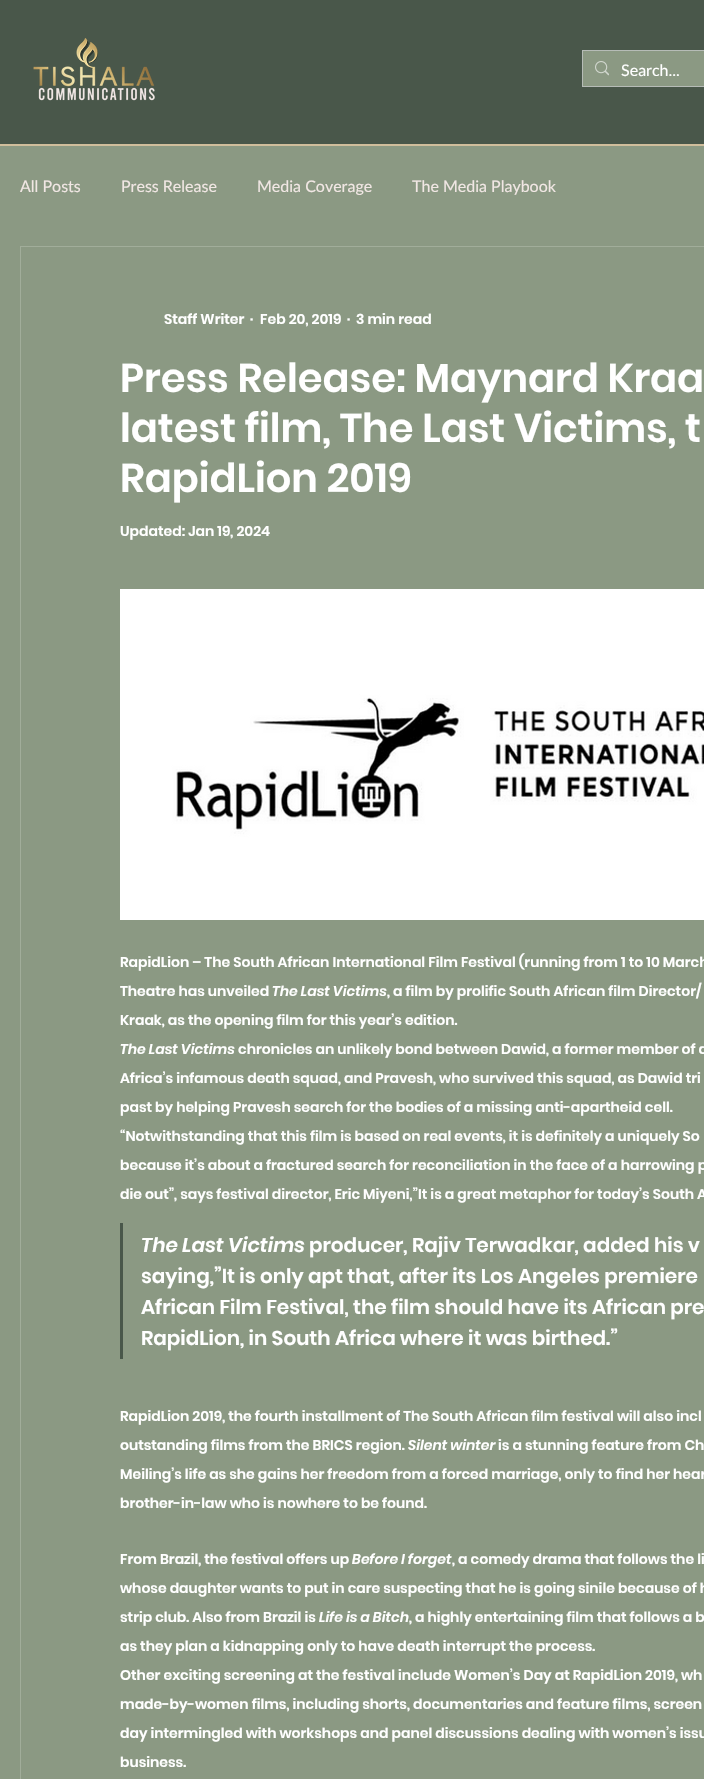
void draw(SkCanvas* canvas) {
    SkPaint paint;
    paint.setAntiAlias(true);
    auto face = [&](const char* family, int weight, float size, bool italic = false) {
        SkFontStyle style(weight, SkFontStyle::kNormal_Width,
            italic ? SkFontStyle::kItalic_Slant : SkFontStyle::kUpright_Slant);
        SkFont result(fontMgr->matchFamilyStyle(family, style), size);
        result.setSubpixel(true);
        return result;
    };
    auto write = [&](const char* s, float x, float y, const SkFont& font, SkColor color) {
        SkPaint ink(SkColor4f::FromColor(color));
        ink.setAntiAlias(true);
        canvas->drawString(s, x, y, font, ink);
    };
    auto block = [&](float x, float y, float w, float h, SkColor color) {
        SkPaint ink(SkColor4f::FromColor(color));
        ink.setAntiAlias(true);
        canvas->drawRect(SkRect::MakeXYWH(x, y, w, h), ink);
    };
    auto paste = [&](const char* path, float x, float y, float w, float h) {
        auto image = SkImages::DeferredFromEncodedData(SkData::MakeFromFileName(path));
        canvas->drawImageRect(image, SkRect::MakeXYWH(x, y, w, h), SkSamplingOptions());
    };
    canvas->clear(SkColorSetRGB(139, 153, 131));
    block(0, 0, 704, 144, SkColorSetRGB(73, 87, 74));
    block(0, 144, 704, 2, SkColorSetRGB(208, 190, 156));
    paste("pic1.png", 33, 38, 122, 63);
    paint.setStyle(SkPaint::kStroke_Style);
    paint.setStrokeWidth(1);
    paint.setColor(SkColorSetRGB(182, 188, 183));
    canvas->drawRect(SkRect::MakeXYWH(582.5f, 50.5f, 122, 36), paint);
    block(583, 51, 121, 35, SkColorSetRGB(139, 153, 131));
    paste("pic2.png", 595, 61, 14, 15);
    auto kFont1 = face("Lato", 400, 16);
    write("Search...", 621, 76, kFont1, SK_ColorWHITE);
    write("All Posts", 20, 192, kFont1, SkColorSetRGB(241, 231, 228));
    write("Press Release", 121, 192, kFont1, SkColorSetRGB(241, 231, 228));
    write("Media Coverage", 257, 192, kFont1, SkColorSetRGB(241, 231, 228));
    write("The Media Playbook", 412, 192, kFont1, SkColorSetRGB(241, 231, 228));
    paint.setColor(SkColorSetRGB(161, 173, 154));
    canvas->drawRect(SkRect::MakeXYWH(20.5f, 246.5f, 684, 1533), paint);
    auto kFont2 = face("Poppins", 600, 14);
    write("Staff Writer", 164, 324, kFont2, SK_ColorWHITE);
    write("·", 250, 324, kFont2, SK_ColorWHITE);
    write("Feb 20, 2019", 260, 324, kFont2, SK_ColorWHITE);
    write("·", 347, 324, kFont2, SK_ColorWHITE);
    write("3 min read", 356, 324, kFont2, SK_ColorWHITE);
    auto kFont3 = face("Poppins", 600, 40);
    write("Press Release: Maynard Kraa", 120, 392, kFont3, SK_ColorWHITE);
    write("latest film, The Last Victims, t", 120, 442, kFont3, SK_ColorWHITE);
    write("RapidLion 2019", 120, 492, kFont3, SK_ColorWHITE);
    write("Updated: Jan 19, 2024", 120, 536, kFont2, SK_ColorWHITE);
    paste("pic3.png", 120, 589, 584, 331);
    write("RapidLion – The South African International Film Festival (running from 1 to 10 March", 120, 967, kFont2, SK_ColorWHITE);
    write("Theatre has unveiled", 120, 996, kFont2, SK_ColorWHITE);
    auto kFont4 = face("Poppins", 600, 14, true);
    write("The Last Victims", 272, 996, kFont4, SK_ColorWHITE);
    write(", a film by prolific South African film Director/", 387, 996, kFont2, SK_ColorWHITE);
    write("Kraak, as the opening film for this year’s edition.", 120, 1025, kFont2, SK_ColorWHITE);
    write("The Last Victims", 120, 1054, kFont4, SK_ColorWHITE);
    write("chronicles an unlikely bond between Dawid, a former member of a", 238, 1054, kFont2, SK_ColorWHITE);
    write("Africa’s infamous death squad, and Pravesh, who survived this squad, as Dawid tri", 120, 1083, kFont2, SK_ColorWHITE);
    write("past by helping Pravesh search for the bodies of a missing anti-apartheid cell.", 120, 1112, kFont2, SK_ColorWHITE);
    write("“Notwithstanding that this film is based on real events, it is definitely a uniquely So", 120, 1141, kFont2, SK_ColorWHITE);
    write("because it’s about a fractured search for reconciliation in the face of a harrowing p", 120, 1170, kFont2, SK_ColorWHITE);
    write("die out”, says festival director, Eric Miyeni,”It is a great metaphor for today’s South A", 120, 1199, kFont2, SK_ColorWHITE);
    block(120, 1223, 3, 136, SkColorSetRGB(73, 87, 74));
    auto kFont5 = face("Poppins", 600, 20, true);
    write("The Last Victims", 141, 1252, kFont5, SK_ColorWHITE);
    auto kFont6 = face("Poppins", 600, 20);
    write("producer, Rajiv Terwadkar, added his v", 309, 1252, kFont6, SK_ColorWHITE);
    write("saying,”It is only apt that, after its Los Angeles premiere", 141, 1283, kFont6, SK_ColorWHITE);
    write("African Film Festival, the film should have its African pre", 141, 1314, kFont6, SK_ColorWHITE);
    write("RapidLion, in South Africa where it was birthed.”", 141, 1345, kFont6, SK_ColorWHITE);
    write("RapidLion 2019, the fourth installment of The South African film festival will also incl", 120, 1421, kFont2, SK_ColorWHITE);
    write("outstanding films from the BRICS region.", 120, 1450, kFont2, SK_ColorWHITE);
    write("Silent winter", 408, 1450, kFont4, SK_ColorWHITE);
    write("is a stunning feature from Ch", 498, 1450, kFont2, SK_ColorWHITE);
    write("Meiling’s life as she gains her freedom from a forced marriage, only to find her hear", 120, 1479, kFont2, SK_ColorWHITE);
    write("brother-in-law who is nowhere to be found.", 120, 1508, kFont2, SK_ColorWHITE);
    write("From Brazil, the festival offers up", 120, 1564, kFont2, SK_ColorWHITE);
    write("Before I forget", 352, 1564, kFont4, SK_ColorWHITE);
    write(", a comedy drama that follows the li", 452, 1564, kFont2, SK_ColorWHITE);
    write("whose daughter wants to put in care suspecting that he is going sinile because of h", 120, 1593, kFont2, SK_ColorWHITE);
    write("strip club. Also from Brazil is", 120, 1622, kFont2, SK_ColorWHITE);
    write("Life is a Bitch", 319, 1622, kFont4, SK_ColorWHITE);
    write(", a highly entertaining film that follows a b", 409, 1622, kFont2, SK_ColorWHITE);
    write("as they plan a kidnapping only to have death interrupt the process.", 120, 1651, kFont2, SK_ColorWHITE);
    write("Other exciting screening at the festival include Women’s Day at RapidLion 2019, wh", 120, 1680, kFont2, SK_ColorWHITE);
    write("made-by-women films, including shorts, documentaries and feature films, screen", 120, 1709, kFont2, SK_ColorWHITE);
    write("day intermingled with workshops and panel discussions dealing with women’s issu", 120, 1738, kFont2, SK_ColorWHITE);
    write("business.", 120, 1767, kFont2, SK_ColorWHITE);
}
